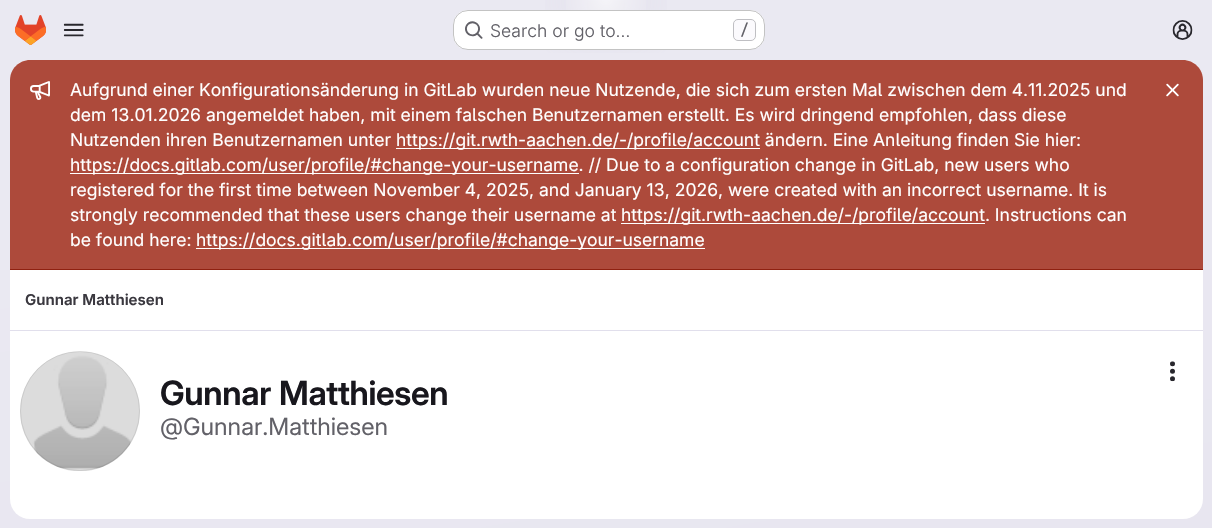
void draw(SkCanvas* canvas) {
    SkPaint paint;
    paint.setAntiAlias(true);
    auto face = [&](const char* family, int weight, float size, bool italic = false) {
        SkFontStyle style(weight, SkFontStyle::kNormal_Width,
            italic ? SkFontStyle::kItalic_Slant : SkFontStyle::kUpright_Slant);
        SkFont result(fontMgr->matchFamilyStyle(family, style), size);
        result.setSubpixel(true);
        return result;
    };
    auto write = [&](const char* s, float x, float y, const SkFont& font, SkColor color) {
        SkPaint ink(SkColor4f::FromColor(color));
        ink.setAntiAlias(true);
        canvas->drawString(s, x, y, font, ink);
    };
    auto writeSpaced = [&](const char* s, float x, float y, const SkFont& font, const SkPaint& ink, float letter, float word) {
        std::vector<SkGlyphID> glyphs(font.countText(s, strlen(s), SkTextEncoding::kUTF8));
        std::vector<float> xs(glyphs.size());
        font.textToGlyphs(s, strlen(s), SkTextEncoding::kUTF8, glyphs);
        font.getXPos(glyphs, xs, x);
        float extra = 0;
        for (size_t i = 0; i < glyphs.size(); i++) {
            xs[i] += extra;
            extra += letter + word * (glyphs[i] == font.unicharToGlyph(' '));
        }
        canvas->drawTextBlob(SkTextBlob::MakeFromPosHGlyphs(glyphs, xs, y, font), 0, 0, ink);
    };
    auto block = [&](float x, float y, float w, float h, SkColor color) {
        SkPaint ink(SkColor4f::FromColor(color));
        ink.setAntiAlias(true);
        canvas->drawRect(SkRect::MakeXYWH(x, y, w, h), ink);
    };
    auto card = [&](float x, float y, float w, float h, float radius, SkColor color) {
        SkPaint ink(SkColor4f::FromColor(color));
        ink.setAntiAlias(true);
        canvas->drawRoundRect(SkRect::MakeXYWH(x, y, w, h), radius, radius, ink);
    };
    auto paste = [&](const char* path, float x, float y, float w, float h) {
        auto image = SkImages::DeferredFromEncodedData(SkData::MakeFromFileName(path));
        canvas->drawImageRect(image, SkRect::MakeXYWH(x, y, w, h), SkSamplingOptions());
    };
    canvas->clear(SK_ColorWHITE);
    {
        const SkColor colors[] = {SkColorSetRGB(232, 230, 240), SkColorSetRGB(234, 233, 242)};
        const float stops[] = {0, 0.7f};
        const SkPoint ends[] = {{670, 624}, {543, -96}};
        paint.setShader(SkGradientShader::MakeLinear(ends, colors, stops, 2, SkTileMode::kClamp));
        paint.setAlpha(255);
    }
    canvas->drawRect(SkRect::MakeXYWH(0, 0, 1212, 528), paint);
    {
        const SkColor colors[] = {SkColorSetRGB(228, 226, 237), SkColorSetARGB(0, 228, 226, 237)};
        const float stops[] = {0, 0.14f};
        SkMatrix m = SkMatrix::Translate(606, 0).preScale(606, 529);
        paint.setShader(SkGradientShader::MakeRadial({0, 0}, 1, colors, stops, 2, SkTileMode::kClamp, 0, &m));
        paint.setAlpha(255);
    }
    canvas->drawRect(SkRect::MakeXYWH(545, 0, 122, 53), paint);
    {
        const SkColor colors[] = {SkColorSetRGB(228, 226, 236), SkColorSetARGB(0, 228, 226, 236)};
        const float stops[] = {0, 0.1f};
        SkMatrix m = SkMatrix::Translate(606, 0).preScale(606, 529);
        paint.setShader(SkGradientShader::MakeRadial({0, 0}, 1, colors, stops, 2, SkTileMode::kClamp, 0, &m));
        paint.setAlpha(255);
    }
    canvas->drawRect(SkRect::MakeXYWH(587, 1, 38, 14), paint);
    {
        const SkColor colors[] = {SkColorSetARGB(153, 255, 255, 255), SkColorSetARGB(0, 255, 255, 255)};
        const float stops[] = {0, 0.06f};
        paint.setShader(SkGradientShader::MakeRadial({606, 0}, 804, colors, stops, 2, SkTileMode::kClamp));
        paint.setAlpha(255);
    }
    canvas->drawRect(SkRect::MakeXYWH(566, 0, 80, 10), paint);
    paste("pic1.png", 15, 15, 31, 30);
    paste("pic2.png", 63, 23, 21, 14);
    card(453, 10, 312, 40, 15, SK_ColorWHITE);
    paint.setStyle(SkPaint::kStroke_Style);
    paint.setStrokeWidth(1);
    paint.setShader(nullptr);
    paint.setColor(SkColorSetARGB(61, 5, 5, 6));
    canvas->drawRoundRect(SkRect::MakeXYWH(453.5f, 10.5f, 311, 39), 14.5f, 14.5f, paint);
    paste("pic3.png", 465, 21, 18, 18);
    auto kFont1 = face("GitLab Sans", 300, 17.5f);
    write("Search or go to…", 490, 37, kFont1, SkColorSetRGB(98, 97, 104));
    paint.setStyle(SkPaint::kFill_Style);
    paint.setColor(SkColorSetRGB(251, 250, 253));
    canvas->drawRoundRect(SkRect::MakeXYWH(733.5f, 19.5f, 22, 21), 4.5f, 4.5f, paint);
    paint.setStyle(SkPaint::kStroke_Style);
    paint.setColor(SkColorSetRGB(191, 191, 195));
    canvas->drawRoundRect(SkRect::MakeXYWH(733.5f, 19.5f, 22, 21), 4.5f, 4.5f, paint);
    auto kFont2 = face("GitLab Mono", 500, 15);
    write("/", 740, 35, kFont2, SkColorSetRGB(98, 97, 104));
    paste("pic4.png", 1172, 20, 21, 20);
    card(10, 60, 1193, 459, 20, SK_ColorWHITE);
    paint.setStyle(SkPaint::kFill_Style);
    paint.setColor(SkColorSetRGB(173, 74, 59));
    canvas->drawPath(SkPathBuilder().moveTo(30, 60).lineTo(1183, 60).cubicTo(1194, 60, 1203, 69, 1203, 80).lineTo(1203, 270).lineTo(10, 270).lineTo(10, 80).cubicTo(10, 69, 19, 60, 30, 60).close().detach(), paint);
    block(10, 269, 1193, 1, SkColorSetRGB(143, 33, 16));
    paste("pic5.png", 30, 81, 20, 19);
    auto kFont3 = face("GitLab Sans", 400, 17.5f);
    write("Aufgrund einer Konfigurationsänderung in GitLab wurden neue Nutzende, die sich zum ersten Mal zwischen dem 4.11.2025 und", 70, 96, kFont3, SK_ColorWHITE);
    write("dem 13.01.2026 angemeldet haben, mit einem falschen Benutzernamen erstellt. Es wird dringend empfohlen, dass diese", 70, 121, kFont3, SK_ColorWHITE);
    write("Nutzenden ihren Benutzernamen unter", 70, 146, kFont3, SK_ColorWHITE);
    block(396, 148, 364, 1, SK_ColorWHITE);
    write("https://git.rwth-aachen.de/-/profile/account ändern. Eine Anleitung finden Sie hier:", 396, 146, kFont3, SK_ColorWHITE);
    block(70, 173, 509, 1, SK_ColorWHITE);
    write("https://docs.gitlab.com/user/profile/#change-your-username. // Due to a configuration change in GitLab, new users who", 70, 171, kFont3, SK_ColorWHITE);
    write("registered for the first time between November 4, 2025, and January 13, 2026, were created with an incorrect username. It is", 70, 196, kFont3, SK_ColorWHITE);
    write("strongly recommended that these users change their username at", 70, 221, kFont3, SK_ColorWHITE);
    block(621, 223, 364, 1, SK_ColorWHITE);
    write("https://git.rwth-aachen.de/-/profile/account. Instructions can", 621, 221, kFont3, SK_ColorWHITE);
    write("be found here:", 70, 246, kFont3, SK_ColorWHITE);
    block(196, 248, 509, 1, SK_ColorWHITE);
    write("https://docs.gitlab.com/user/profile/#change-your-username", 196, 246, kFont3, SK_ColorWHITE);
    paste("pic6.png", 1166, 83, 13, 14);
    block(10, 330, 1193, 1, SkColorSetRGB(225, 223, 236));
    auto kFont4 = face("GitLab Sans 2", 600, 15);
    write("Gunnar Matthiesen", 25, 305, kFont4, SkColorSetRGB(58, 56, 63));
    paste("pic7.png", 1170, 361, 5, 21);
    paste("pic8.png", 20, 351, 120, 120);
    paint.setStyle(SkPaint::kStroke_Style);
    paint.setColor(SkColorSetARGB(20, 5, 5, 6));
    canvas->drawCircle(80, 411, 59.5f, paint);
    auto kFont5 = face("GitLab Sans", 600, 33.5f);
    paint.setStyle(SkPaint::kFill_Style);
    paint.setColor(SkColorSetRGB(24, 23, 29));
    writeSpaced("Gunnar Matthiesen", 160, 405, kFont5, paint, -0.3f, 1);
    auto kFont6 = face("GitLab Sans 2", 400, 23.75f);
    write("@Gunnar.Matthiesen", 160, 435, kFont6, SkColorSetRGB(98, 97, 104));
}
